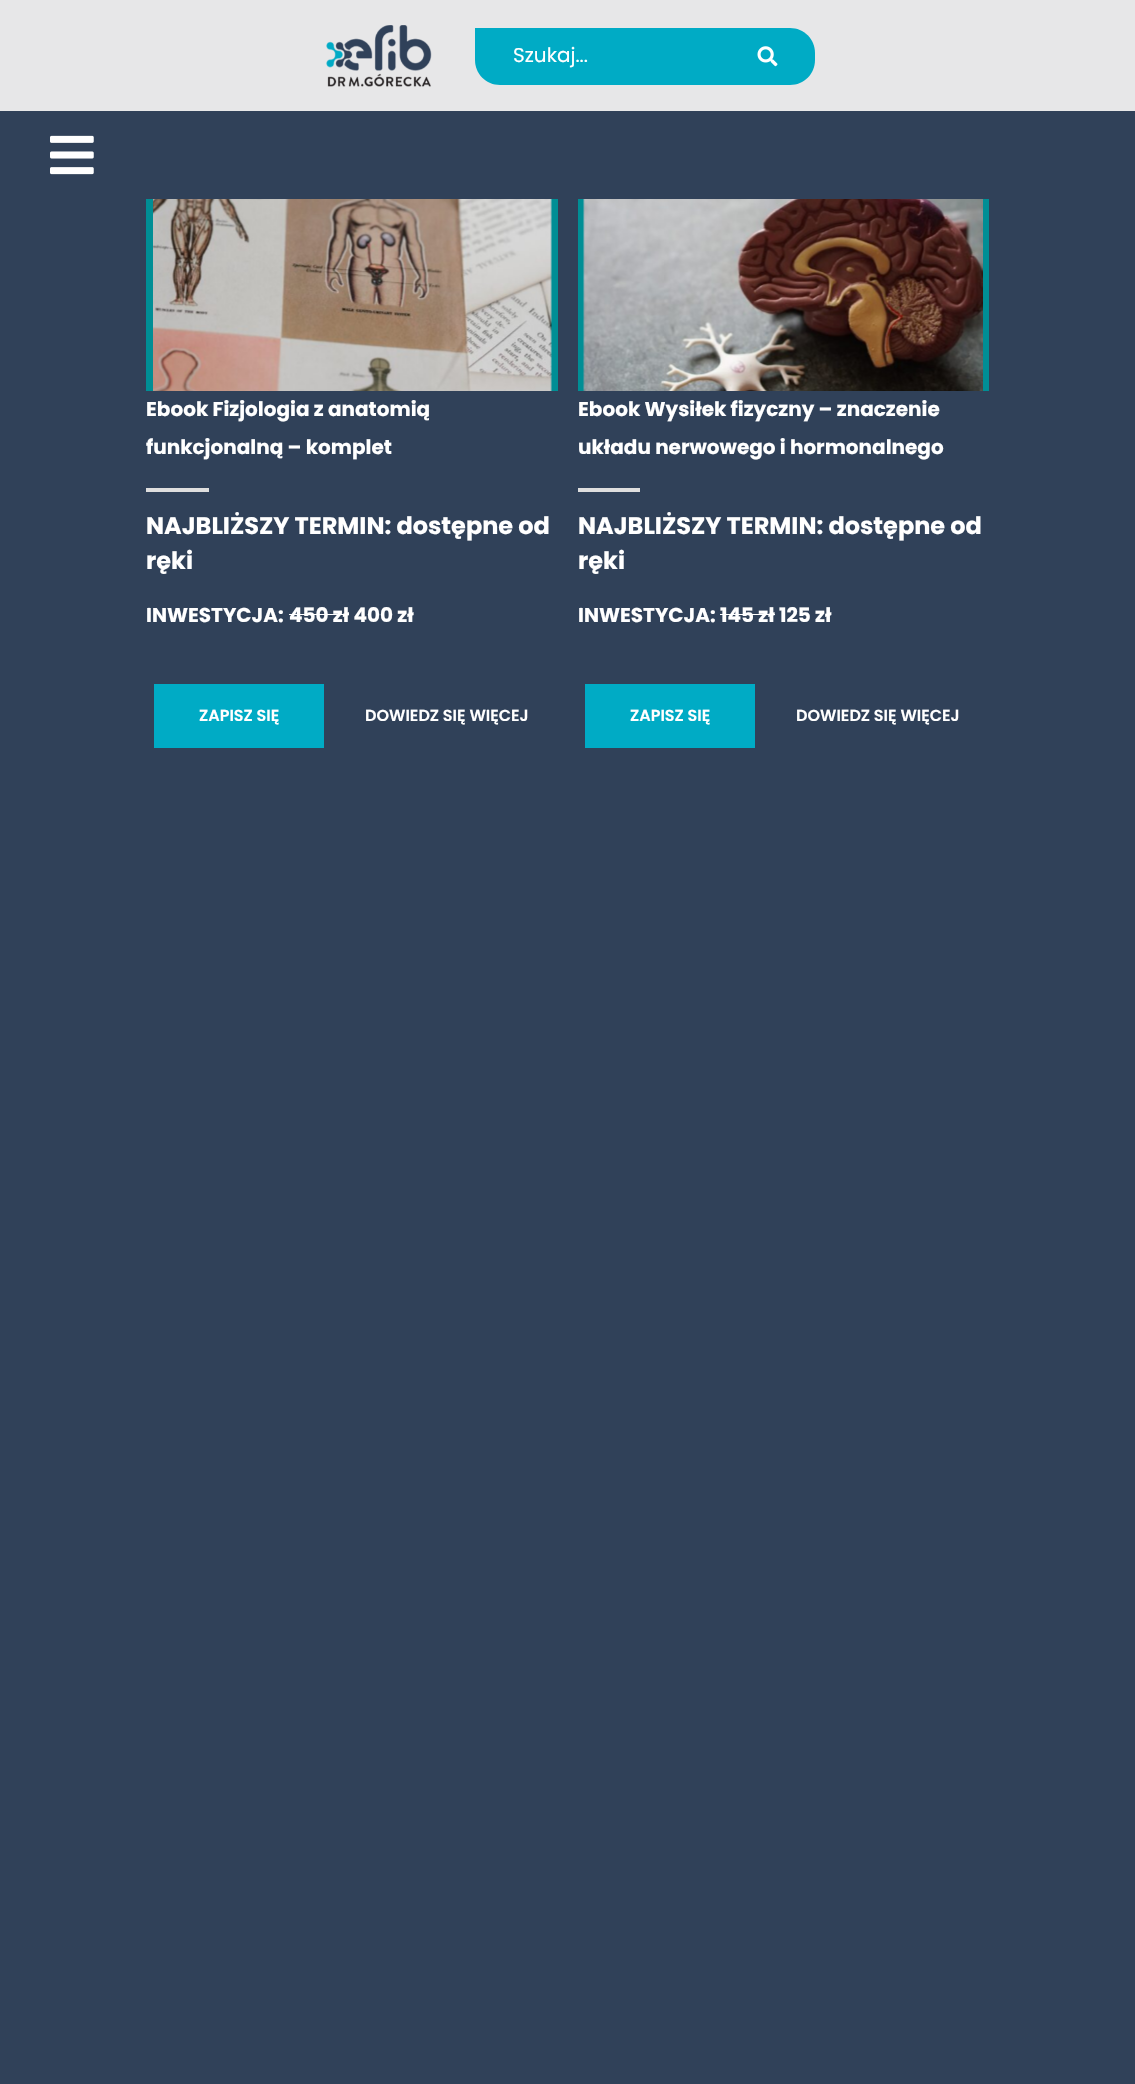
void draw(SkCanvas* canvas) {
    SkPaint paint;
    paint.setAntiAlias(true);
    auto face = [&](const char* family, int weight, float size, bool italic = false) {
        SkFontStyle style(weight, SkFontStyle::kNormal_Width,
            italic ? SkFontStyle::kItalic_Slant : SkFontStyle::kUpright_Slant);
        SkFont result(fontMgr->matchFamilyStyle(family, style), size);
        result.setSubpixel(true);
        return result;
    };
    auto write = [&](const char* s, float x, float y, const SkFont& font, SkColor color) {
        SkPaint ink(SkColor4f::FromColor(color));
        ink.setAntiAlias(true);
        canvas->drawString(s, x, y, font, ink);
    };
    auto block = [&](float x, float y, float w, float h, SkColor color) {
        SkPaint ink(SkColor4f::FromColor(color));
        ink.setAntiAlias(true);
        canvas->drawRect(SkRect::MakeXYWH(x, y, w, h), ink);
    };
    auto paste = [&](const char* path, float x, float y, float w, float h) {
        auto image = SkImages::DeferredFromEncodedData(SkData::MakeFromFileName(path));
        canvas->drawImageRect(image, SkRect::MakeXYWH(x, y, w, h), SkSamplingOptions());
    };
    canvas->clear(SkColorSetRGB(48, 65, 89));
    block(0, 0, 1135, 111, SkColorSetRGB(231, 231, 232));
    paste("pic1.png", 326, 25, 106, 62);
    paint.setColor(SkColorSetRGB(0, 171, 197));
    canvas->drawPath(SkPathBuilder().moveTo(475, 28).lineTo(790, 28).cubicTo(804, 28, 815, 39, 815, 53).lineTo(815, 60).cubicTo(815, 74, 804, 85, 790, 85).lineTo(500, 85).cubicTo(486, 85, 475, 74, 475, 60).close().detach(), paint);
    auto kFont1 = face("Poppins", 400, 20);
    write("Szukaj...", 513, 62, kFont1, SK_ColorWHITE);
    paste("pic2.png", 757, 46, 21, 21);
    paste("pic3.png", 50, 135, 44, 40);
    block(146, 199, 412, 192, SkColorSetRGB(0, 142, 149));
    paste("pic4.png", 153, 199, 399, 192);
    auto kFont2 = face("Poppins", 700, 20);
    write("Ebook Fizjologia z anatomią", 146, 416, kFont2, SK_ColorWHITE);
    write("funkcjonalną – komplet", 146, 454, kFont2, SK_ColorWHITE);
    block(146, 488, 63, 4, SkColorSetRGB(222, 222, 222));
    auto kFont3 = face("Poppins", 700, 24);
    write("NAJBLIŻSZY TERMIN: dostępne od", 146, 534, kFont3, SK_ColorWHITE);
    write("ręki", 146, 569, kFont3, SK_ColorWHITE);
    write("INWESTYCJA:", 146, 622, kFont2, SK_ColorWHITE);
    write("450 zł 400 zł", 289, 622, kFont2, SK_ColorWHITE);
    block(289, 614, 60, 1, SK_ColorWHITE);
    block(154, 684, 170, 64, SkColorSetRGB(0, 171, 197));
    auto kFont4 = face("Poppins", 600, 16);
    write("ZAPISZ SIĘ", 199, 721, kFont4, SK_ColorWHITE);
    write("DOWIEDZ SIĘ WIĘCEJ", 365, 721, kFont4, SK_ColorWHITE);
    block(578, 199, 411, 192, SkColorSetRGB(0, 142, 149));
    paste("pic5.png", 583, 199, 400, 192);
    write("Ebook Wysiłek fizyczny – znaczenie", 578, 416, kFont2, SK_ColorWHITE);
    write("układu nerwowego i hormonalnego", 578, 454, kFont2, SK_ColorWHITE);
    block(578, 488, 62, 4, SkColorSetRGB(222, 222, 222));
    write("NAJBLIŻSZY TERMIN: dostępne od", 578, 534, kFont3, SK_ColorWHITE);
    write("ręki", 578, 569, kFont3, SK_ColorWHITE);
    write("INWESTYCJA:", 578, 622, kFont2, SK_ColorWHITE);
    write("145 zł 125 zł", 720, 622, kFont2, SK_ColorWHITE);
    block(720, 614, 55, 1, SK_ColorWHITE);
    block(585, 684, 170, 64, SkColorSetRGB(0, 171, 197));
    write("ZAPISZ SIĘ", 630, 721, kFont4, SK_ColorWHITE);
    write("DOWIEDZ SIĘ WIĘCEJ", 796, 721, kFont4, SK_ColorWHITE);
}
